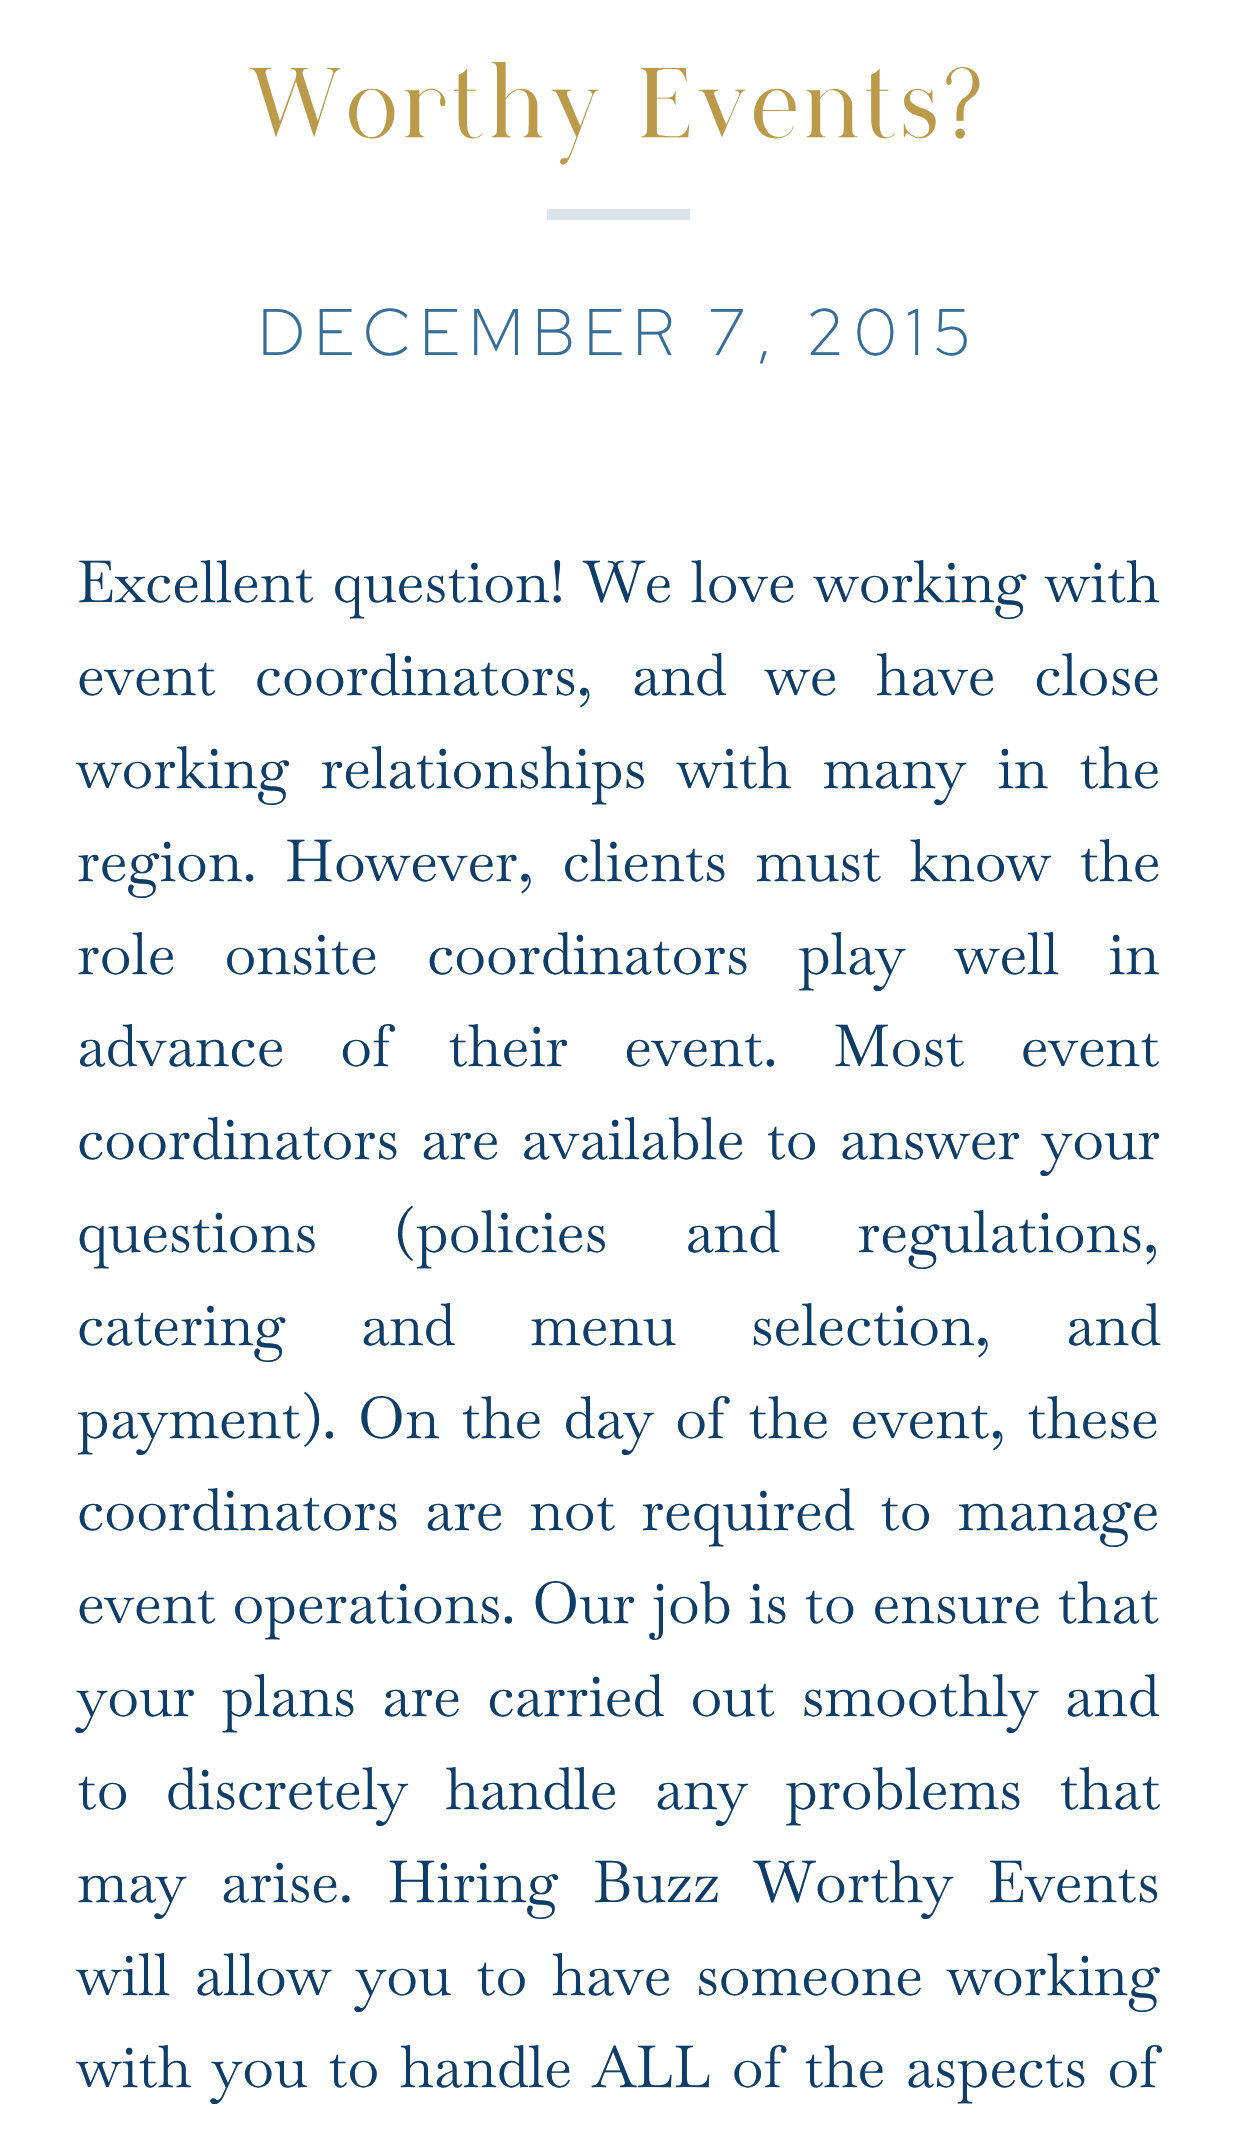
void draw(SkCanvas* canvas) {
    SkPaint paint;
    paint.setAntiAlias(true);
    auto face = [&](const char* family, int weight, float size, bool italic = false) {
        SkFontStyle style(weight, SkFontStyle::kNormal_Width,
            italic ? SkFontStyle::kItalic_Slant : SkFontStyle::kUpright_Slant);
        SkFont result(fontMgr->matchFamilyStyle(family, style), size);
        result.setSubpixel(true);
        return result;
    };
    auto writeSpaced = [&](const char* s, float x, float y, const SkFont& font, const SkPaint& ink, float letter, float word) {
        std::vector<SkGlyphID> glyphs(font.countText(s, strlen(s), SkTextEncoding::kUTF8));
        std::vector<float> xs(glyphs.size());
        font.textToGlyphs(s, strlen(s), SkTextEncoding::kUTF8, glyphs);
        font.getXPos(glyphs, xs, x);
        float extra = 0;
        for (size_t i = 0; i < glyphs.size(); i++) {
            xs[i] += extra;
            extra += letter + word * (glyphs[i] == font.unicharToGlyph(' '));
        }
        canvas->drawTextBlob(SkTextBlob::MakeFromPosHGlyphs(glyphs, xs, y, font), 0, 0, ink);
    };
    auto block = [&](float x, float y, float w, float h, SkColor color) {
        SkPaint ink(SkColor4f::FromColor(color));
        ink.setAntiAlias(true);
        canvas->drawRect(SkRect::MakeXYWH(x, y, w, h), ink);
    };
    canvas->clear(SK_ColorWHITE);
    auto kFont1 = face("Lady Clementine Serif", 400, 116);
    paint.setColor(SkColorSetRGB(187, 155, 73));
    writeSpaced("Worthy Events?", 249, 134, kFont1, paint, 5.75f, 0);
    block(547, 209, 143, 11, SkColorSetRGB(217, 227, 232));
    auto kFont2 = face("Red Hat Display", 300, 65.75f);
    paint.setColor(SkColorSetRGB(54, 110, 153));
    writeSpaced("DECEMBER 7, 2015", 258, 355, kFont2, paint, 9.25f, 0);
    auto kFont3 = face("Baskervville", 400, 58);
    paint.setColor(SkColorSetRGB(14, 61, 104));
    writeSpaced("Excellent question! We love working with", 77, 602, kFont3, paint, 0, 3.25f);
    writeSpaced("event coordinators, and we have close", 77, 695, kFont3, paint, 0, 23.5f);
    writeSpaced("working relationships with many in the", 77, 788, kFont3, paint, 0, 15.5f);
    writeSpaced("region. However, clients must know the", 77, 881, kFont3, paint, 0, 13);
    writeSpaced("role onsite coordinators play well in", 77, 974, kFont3, paint, 0, 34);
    writeSpaced("advance of their event. Most event", 77, 1066, kFont3, paint, 0, 40.75f);
    writeSpaced("coordinators are available to answer your", 77, 1159, kFont3, paint, 0, 6.5f);
    writeSpaced("questions (policies and regulations,", 77, 1252, kFont3, paint, 0, 62.5f);
    writeSpaced("catering and menu selection, and", 77, 1345, kFont3, paint, 0, 59.5f);
    writeSpaced("payment). On the day of the event, these", 77, 1438, kFont3, paint, 0, 6);
    writeSpaced("coordinators are not required to manage", 77, 1530, kFont3, paint, 0, 10.5f);
    writeSpaced("event operations. Our job is to ensure that", 77, 1623, kFont3, paint, 0, 1.25f);
    writeSpaced("your plans are carried out smoothly and", 77, 1716, kFont3, paint, 0, 11);
    writeSpaced("to discretely handle any problems that", 77, 1809, kFont3, paint, 0, 22);
    writeSpaced("may arise. Hiring Buzz Worthy Events", 77, 1902, kFont3, paint, 0, 19);
    writeSpaced("will allow you to have someone working", 77, 1995, kFont3, paint, 0, 9.25f);
    writeSpaced("with you to handle ALL of the aspects of", 77, 2087, kFont3, paint, 0, 5.25f);
}
